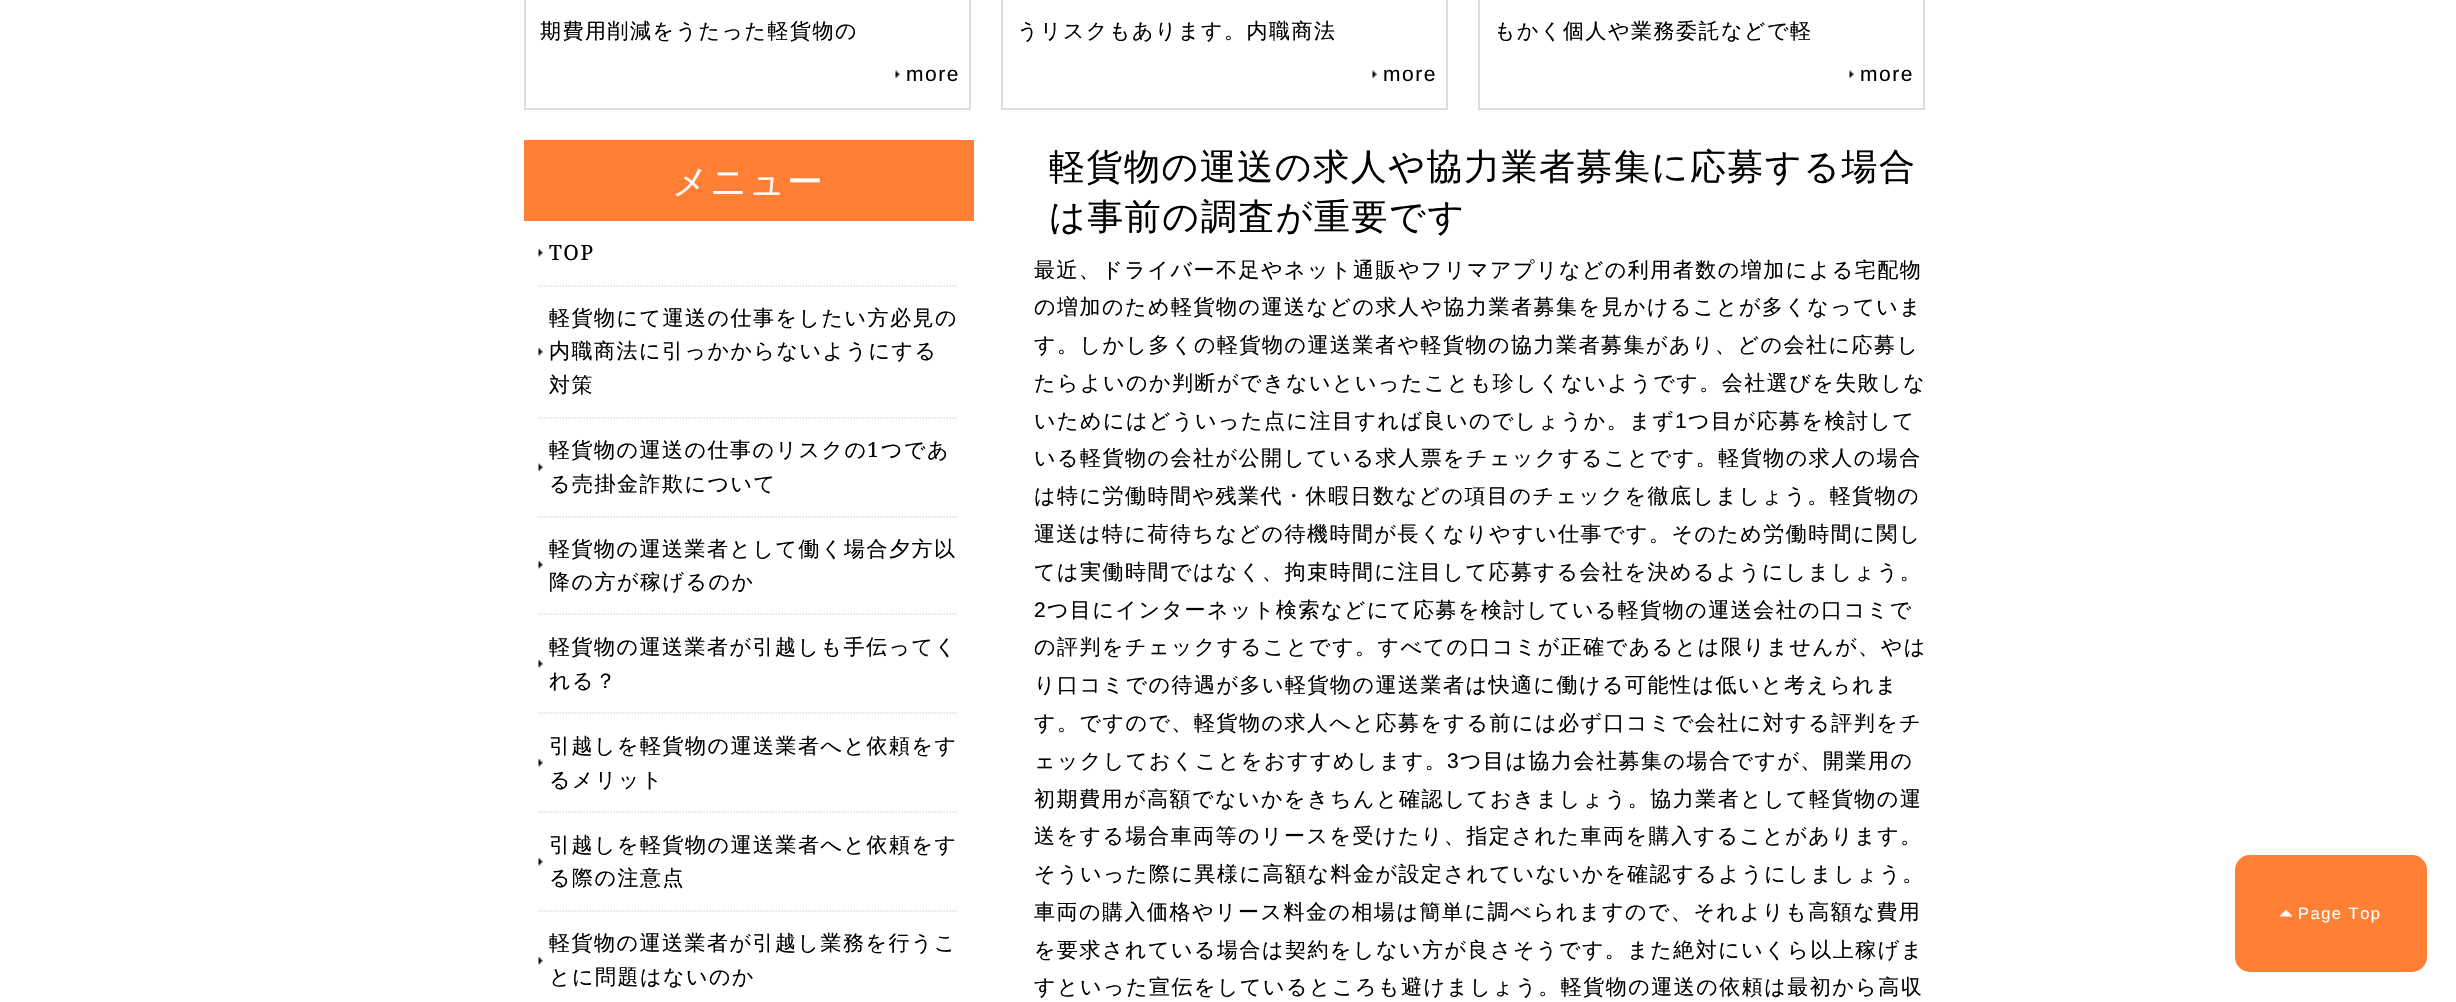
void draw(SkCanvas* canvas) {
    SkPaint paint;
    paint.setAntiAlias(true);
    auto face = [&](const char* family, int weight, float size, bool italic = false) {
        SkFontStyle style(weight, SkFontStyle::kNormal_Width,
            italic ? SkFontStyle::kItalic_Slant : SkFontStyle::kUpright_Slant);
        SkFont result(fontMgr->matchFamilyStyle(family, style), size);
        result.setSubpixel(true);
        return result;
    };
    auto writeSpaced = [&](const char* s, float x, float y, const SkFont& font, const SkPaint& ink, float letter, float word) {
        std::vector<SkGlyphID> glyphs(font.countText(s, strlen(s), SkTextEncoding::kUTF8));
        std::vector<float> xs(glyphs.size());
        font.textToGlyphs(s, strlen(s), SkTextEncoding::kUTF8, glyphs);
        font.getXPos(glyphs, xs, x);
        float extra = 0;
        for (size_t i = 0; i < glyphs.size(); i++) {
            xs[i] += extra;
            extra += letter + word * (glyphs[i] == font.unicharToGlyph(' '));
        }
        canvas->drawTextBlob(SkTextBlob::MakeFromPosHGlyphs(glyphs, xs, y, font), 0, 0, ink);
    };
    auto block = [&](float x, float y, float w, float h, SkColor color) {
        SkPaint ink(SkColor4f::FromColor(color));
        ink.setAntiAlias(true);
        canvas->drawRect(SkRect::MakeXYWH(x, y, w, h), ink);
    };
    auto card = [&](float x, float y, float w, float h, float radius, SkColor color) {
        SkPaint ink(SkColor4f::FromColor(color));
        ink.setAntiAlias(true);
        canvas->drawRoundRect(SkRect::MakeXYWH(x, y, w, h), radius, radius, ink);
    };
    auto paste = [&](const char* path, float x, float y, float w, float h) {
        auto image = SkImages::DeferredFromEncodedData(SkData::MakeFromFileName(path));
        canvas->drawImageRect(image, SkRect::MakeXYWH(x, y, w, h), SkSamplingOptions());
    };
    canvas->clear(SK_ColorWHITE);
    block(969, 0, 2, 110, SkColorSetRGB(221, 221, 221));
    block(524, 108, 447, 2, SkColorSetRGB(221, 221, 221));
    block(524, 0, 2, 110, SkColorSetRGB(221, 221, 221));
    auto kFont1 = face("WenQuanYi Zen Hei", 500, 21);
    paint.setColor(SK_ColorBLACK);
    writeSpaced("期費用削減をうたった軽貨物の", 540, 38, kFont1, paint, 1.5f, 0);
    paste("pic1.png", 895, 70, 5, 8);
    auto kFont2 = face("Liberation Sans", 400, 21);
    writeSpaced("more", 906, 81, kFont2, paint, 1.5f, 0);
    block(1446, 0, 2, 110, SkColorSetRGB(221, 221, 221));
    block(1001, 108, 447, 2, SkColorSetRGB(221, 221, 221));
    block(1001, 0, 2, 110, SkColorSetRGB(221, 221, 221));
    writeSpaced("うリスクもあります。内職商法", 1017, 38, kFont1, paint, 1.5f, 0);
    paste("pic2.png", 1372, 70, 5, 8);
    writeSpaced("more", 1383, 81, kFont2, paint, 1.5f, 0);
    block(1923, 0, 2, 110, SkColorSetRGB(221, 221, 221));
    block(1478, 108, 447, 2, SkColorSetRGB(221, 221, 221));
    block(1478, 0, 2, 110, SkColorSetRGB(221, 221, 221));
    writeSpaced("もかく個人や業務委託などで軽", 1494, 38, kFont1, paint, 1.5f, 0);
    paste("pic1.png", 1849, 70, 5, 8);
    writeSpaced("more", 1860, 81, kFont2, paint, 1.5f, 0);
    block(524, 140, 450, 81, SkColorSetRGB(255, 128, 52));
    auto kFont3 = face("WenQuanYi Zen Hei", 500, 36);
    paint.setColor(SK_ColorWHITE);
    writeSpaced("メニュー", 672, 194, kFont3, paint, 1.5f, 0);
    paste("pic3.png", 538, 249, 5, 8);
    paint.setStyle(SkPaint::kStroke_Style);
    paint.setStrokeWidth(1.5f);
    paint.setColor(SkColorSetRGB(221, 221, 221));
    paint.setPathEffect(SkDashPathEffect::Make({{1.5f, 1.5f}}, 0));
    canvas->drawPath(SkPathBuilder().moveTo(538.5f, 286).lineTo(958.5f, 286).detach(), paint);
    paint.setPathEffect(nullptr);
    auto kFont4 = face("Noto Serif", 400, 21);
    paint.setStyle(SkPaint::kFill_Style);
    paint.setColor(SK_ColorBLACK);
    writeSpaced("TOP", 549, 260, kFont4, paint, 1.5f, 0);
    paste("pic3.png", 538, 348, 5, 8);
    paint.setStyle(SkPaint::kStroke_Style);
    paint.setColor(SkColorSetRGB(221, 221, 221));
    paint.setPathEffect(SkDashPathEffect::Make({{1.5f, 1.5f}}, 0));
    canvas->drawPath(SkPathBuilder().moveTo(538.5f, 418).lineTo(958.5f, 418).detach(), paint);
    paint.setPathEffect(nullptr);
    paint.setStyle(SkPaint::kFill_Style);
    paint.setColor(SK_ColorBLACK);
    writeSpaced("軽貨物にて運送の仕事をしたい方必見の", 549, 325, kFont1, paint, 1.5f, 0);
    writeSpaced("内職商法に引っかからないようにする", 549, 358, kFont1, paint, 1.5f, 0);
    writeSpaced("対策", 549, 392, kFont1, paint, 1.5f, 0);
    paste("pic2.png", 538, 463, 5, 8);
    paint.setStyle(SkPaint::kStroke_Style);
    paint.setColor(SkColorSetRGB(221, 221, 221));
    paint.setPathEffect(SkDashPathEffect::Make({{1.5f, 1.5f}}, 0));
    canvas->drawPath(SkPathBuilder().moveTo(538.5f, 517).lineTo(958.5f, 517).detach(), paint);
    paint.setPathEffect(nullptr);
    paint.setStyle(SkPaint::kFill_Style);
    paint.setColor(SK_ColorBLACK);
    writeSpaced("軽貨物の運送の仕事のリスクの", 549, 457, kFont1, paint, 1.5f, 0);
    writeSpaced("1", 867, 457, kFont4, paint, 1.5f, 0);
    writeSpaced("つであ", 881, 457, kFont1, paint, 1.5f, 0);
    writeSpaced("る売掛金詐欺について", 549, 491, kFont1, paint, 1.5f, 0);
    paste("pic3.png", 538, 561, 5, 8);
    paint.setStyle(SkPaint::kStroke_Style);
    paint.setColor(SkColorSetRGB(221, 221, 221));
    paint.setPathEffect(SkDashPathEffect::Make({{1.5f, 1.5f}}, 0));
    canvas->drawPath(SkPathBuilder().moveTo(538.5f, 614).lineTo(958.5f, 614).detach(), paint);
    paint.setPathEffect(nullptr);
    paint.setStyle(SkPaint::kFill_Style);
    paint.setColor(SK_ColorBLACK);
    writeSpaced("軽貨物の運送業者として働く場合夕方以", 549, 556, kFont1, paint, 1.5f, 0);
    writeSpaced("降の方が稼げるのか", 549, 589, kFont1, paint, 1.5f, 0);
    paste("pic3.png", 538, 660, 5, 8);
    paint.setStyle(SkPaint::kStroke_Style);
    paint.setColor(SkColorSetRGB(221, 221, 221));
    paint.setPathEffect(SkDashPathEffect::Make({{1.5f, 1.5f}}, 0));
    canvas->drawPath(SkPathBuilder().moveTo(538.5f, 713).lineTo(958.5f, 713).detach(), paint);
    paint.setPathEffect(nullptr);
    paint.setStyle(SkPaint::kFill_Style);
    paint.setColor(SK_ColorBLACK);
    writeSpaced("軽貨物の運送業者が引越しも手伝ってく", 549, 654, kFont1, paint, 1.5f, 0);
    writeSpaced("れる？", 549, 688, kFont1, paint, 1.5f, 0);
    paste("pic3.png", 538, 759, 5, 8);
    paint.setStyle(SkPaint::kStroke_Style);
    paint.setColor(SkColorSetRGB(221, 221, 221));
    paint.setPathEffect(SkDashPathEffect::Make({{1.5f, 1.5f}}, 0));
    canvas->drawPath(SkPathBuilder().moveTo(538.5f, 812).lineTo(958.5f, 812).detach(), paint);
    paint.setPathEffect(nullptr);
    paint.setStyle(SkPaint::kFill_Style);
    paint.setColor(SK_ColorBLACK);
    writeSpaced("引越しを軽貨物の運送業者へと依頼をす", 549, 753, kFont1, paint, 1.5f, 0);
    writeSpaced("るメリット", 549, 787, kFont1, paint, 1.5f, 0);
    paste("pic3.png", 538, 858, 5, 8);
    paint.setStyle(SkPaint::kStroke_Style);
    paint.setColor(SkColorSetRGB(221, 221, 221));
    paint.setPathEffect(SkDashPathEffect::Make({{1.5f, 1.5f}}, 0));
    canvas->drawPath(SkPathBuilder().moveTo(538.5f, 911).lineTo(958.5f, 911).detach(), paint);
    paint.setPathEffect(nullptr);
    paint.setStyle(SkPaint::kFill_Style);
    paint.setColor(SK_ColorBLACK);
    writeSpaced("引越しを軽貨物の運送業者へと依頼をす", 549, 852, kFont1, paint, 1.5f, 0);
    writeSpaced("る際の注意点", 549, 885, kFont1, paint, 1.5f, 0);
    paste("pic3.png", 538, 957, 5, 8);
    writeSpaced("軽貨物の運送業者が引越し業務を行うこ", 549, 950, kFont1, paint, 1.5f, 0);
    writeSpaced("とに問題はないのか", 549, 984, kFont1, paint, 1.5f, 0);
    writeSpaced("軽貨物の運送の求人や協力業者募集に応募する場合", 1049, 179, kFont3, paint, 1.5f, 0);
    writeSpaced("は事前の調査が重要です", 1049, 229, kFont3, paint, 1.5f, 0);
    writeSpaced("最近、ドライバー不足やネット通販やフリマアプリなどの利用者数の増加による宅配物", 1034, 277, kFont1, paint, 1.5f, 0);
    writeSpaced("の増加のため軽貨物の運送などの求人や協力業者募集を見かけることが多くなっていま", 1034, 314, kFont1, paint, 1.5f, 0);
    writeSpaced("す。しかし多くの軽貨物の運送業者や軽貨物の協力業者募集があり、どの会社に応募し", 1034, 352, kFont1, paint, 1.5f, 0);
    writeSpaced("たらよいのか判断ができないといったことも珍しくないようです。会社選びを失敗しな", 1034, 390, kFont1, paint, 1.5f, 0);
    writeSpaced("いためにはどういった点に注目すれば良いのでしょうか。まず", 1034, 428, kFont1, paint, 1.5f, 0);
    writeSpaced("1", 1675, 428, kFont2, paint, 1.5f, 0);
    writeSpaced("つ目が応募を検討して", 1688, 428, kFont1, paint, 1.5f, 0);
    writeSpaced("いる軽貨物の会社が公開している求人票をチェックすることです。軽貨物の求人の場合", 1034, 465, kFont1, paint, 1.5f, 0);
    writeSpaced("は特に労働時間や残業代・休暇日数などの項目のチェックを徹底しましょう。軽貨物の", 1034, 503, kFont1, paint, 1.5f, 0);
    writeSpaced("運送は特に荷待ちなどの待機時間が長くなりやすい仕事です。そのため労働時間に関し", 1034, 541, kFont1, paint, 1.5f, 0);
    writeSpaced("ては実働時間ではなく、拘束時間に注目して応募する会社を決めるようにしましょう。", 1034, 579, kFont1, paint, 1.5f, 0);
    writeSpaced("2", 1034, 617, kFont2, paint, 1.5f, 0);
    writeSpaced("つ目にインターネット検索などにて応募を検討している軽貨物の運送会社の口コミで", 1047, 617, kFont1, paint, 1.5f, 0);
    writeSpaced("の評判をチェックすることです。すべての口コミが正確であるとは限りませんが、やは", 1034, 654, kFont1, paint, 1.5f, 0);
    writeSpaced("り口コミでの待遇が多い軽貨物の運送業者は快適に働ける可能性は低いと考えられま", 1034, 692, kFont1, paint, 1.5f, 0);
    writeSpaced("す。ですので、軽貨物の求人へと応募をする前には必ず口コミで会社に対する評判をチ", 1034, 730, kFont1, paint, 1.5f, 0);
    writeSpaced("ェックしておくことをおすすめします。", 1034, 768, kFont1, paint, 1.5f, 0);
    writeSpaced("3", 1447, 768, kFont2, paint, 1.5f, 0);
    writeSpaced("つ目は協力会社募集の場合ですが、開業用の", 1460, 768, kFont1, paint, 1.5f, 0);
    writeSpaced("初期費用が高額でないかをきちんと確認しておきましょう。協力業者として軽貨物の運", 1034, 806, kFont1, paint, 1.5f, 0);
    writeSpaced("送をする場合車両等のリースを受けたり、指定された車両を購入することがあります。", 1034, 843, kFont1, paint, 1.5f, 0);
    writeSpaced("そういった際に異様に高額な料金が設定されていないかを確認するようにしましょう。", 1034, 881, kFont1, paint, 1.5f, 0);
    writeSpaced("車両の購入価格やリース料金の相場は簡単に調べられますので、それよりも高額な費用", 1034, 919, kFont1, paint, 1.5f, 0);
    writeSpaced("を要求されている場合は契約をしない方が良さそうです。また絶対にいくら以上稼げま", 1034, 957, kFont1, paint, 1.5f, 0);
    writeSpaced("すといった宣伝をしているところも避けましょう。軽貨物の運送の依頼は最初から高収", 1034, 994, kFont1, paint, 1.5f, 0);
    card(2235, 855, 192, 117, 15, SkColorSetRGB(255, 128, 52));
    paste("pic4.png", 2280, 910, 12, 7);
    auto kFont5 = face("Liberation Sans", 400, 16.5f);
    paint.setColor(SK_ColorWHITE);
    writeSpaced("Page Top", 2298, 919, kFont5, paint, 1.5f, 0);
}
